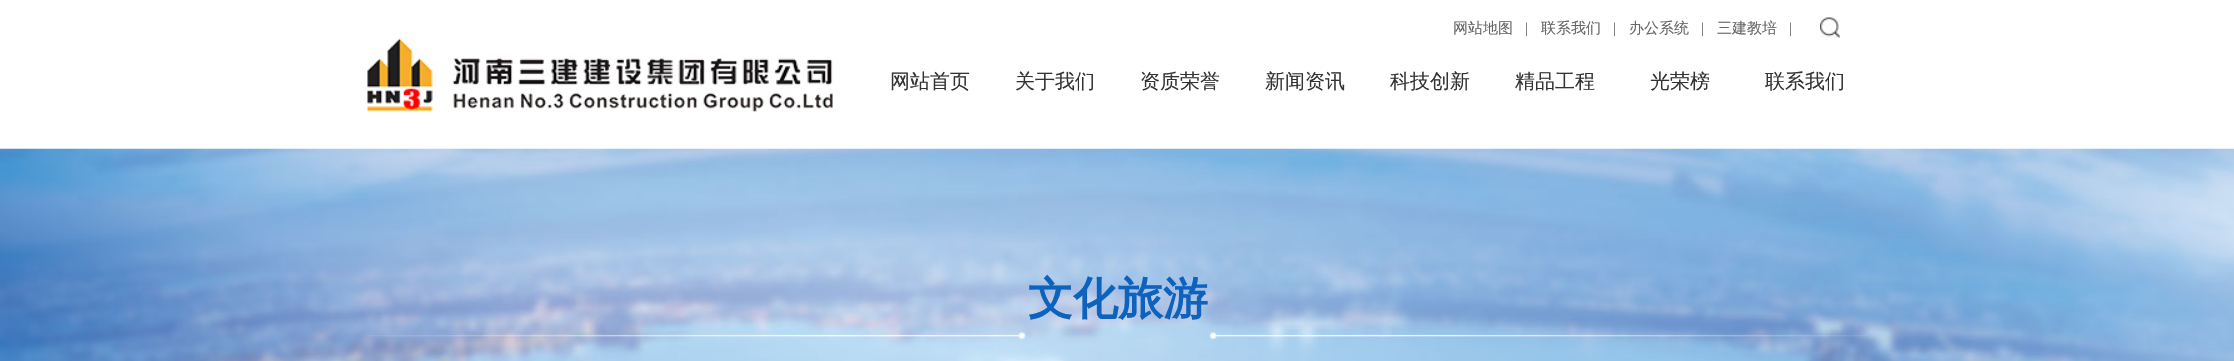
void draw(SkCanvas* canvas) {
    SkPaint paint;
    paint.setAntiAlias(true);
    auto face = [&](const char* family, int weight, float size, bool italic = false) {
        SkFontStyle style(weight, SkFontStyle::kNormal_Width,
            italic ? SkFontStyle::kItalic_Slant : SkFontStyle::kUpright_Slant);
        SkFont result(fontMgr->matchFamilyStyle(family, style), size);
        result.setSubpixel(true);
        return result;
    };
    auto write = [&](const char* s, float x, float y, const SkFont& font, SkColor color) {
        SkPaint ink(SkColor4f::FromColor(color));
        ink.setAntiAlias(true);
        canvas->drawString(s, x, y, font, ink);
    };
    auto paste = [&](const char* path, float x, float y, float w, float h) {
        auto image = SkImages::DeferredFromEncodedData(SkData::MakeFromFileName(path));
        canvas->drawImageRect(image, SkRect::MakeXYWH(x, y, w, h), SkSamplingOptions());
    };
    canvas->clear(SK_ColorWHITE);
    auto kFont1 = face("WenQuanYi Zen Hei", 500, 15);
    write("网站地图", 1453, 33, kFont1, SkColorSetRGB(102, 102, 102));
    auto kFont2 = face("Liberation Serif", 400, 15);
    write("|", 1525, 33, kFont2, SkColorSetRGB(102, 102, 102));
    write("联系我们", 1541, 33, kFont1, SkColorSetRGB(102, 102, 102));
    write("|", 1613, 33, kFont2, SkColorSetRGB(102, 102, 102));
    write("办公系统", 1629, 33, kFont1, SkColorSetRGB(102, 102, 102));
    write("|", 1701, 33, kFont2, SkColorSetRGB(102, 102, 102));
    write("三建教培", 1717, 33, kFont1, SkColorSetRGB(102, 102, 102));
    write("|", 1789, 33, kFont2, SkColorSetRGB(102, 102, 102));
    paste("pic1.png", 1820, 17, 20, 21);
    paste("pic2.png", 367, 38, 466, 74);
    auto kFont3 = face("WenQuanYi Zen Hei", 500, 20);
    write("网站首页", 890, 88, kFont3, SkColorSetRGB(51, 51, 51));
    write("关于我们", 1015, 88, kFont3, SkColorSetRGB(51, 51, 51));
    write("资质荣誉", 1140, 88, kFont3, SkColorSetRGB(51, 51, 51));
    write("新闻资讯", 1265, 88, kFont3, SkColorSetRGB(51, 51, 51));
    write("科技创新", 1390, 88, kFont3, SkColorSetRGB(51, 51, 51));
    write("精品工程", 1515, 88, kFont3, SkColorSetRGB(51, 51, 51));
    write("光荣榜", 1650, 88, kFont3, SkColorSetRGB(51, 51, 51));
    write("联系我们", 1765, 88, kFont3, SkColorSetRGB(51, 51, 51));
    paste("pic3.png", 0, 148, 2234, 213);
    auto kFont4 = face("WenQuanYi Zen Hei", 700, 45);
    write("文化旅游", 1028, 314, kFont4, SkColorSetRGB(13, 98, 190));
}
